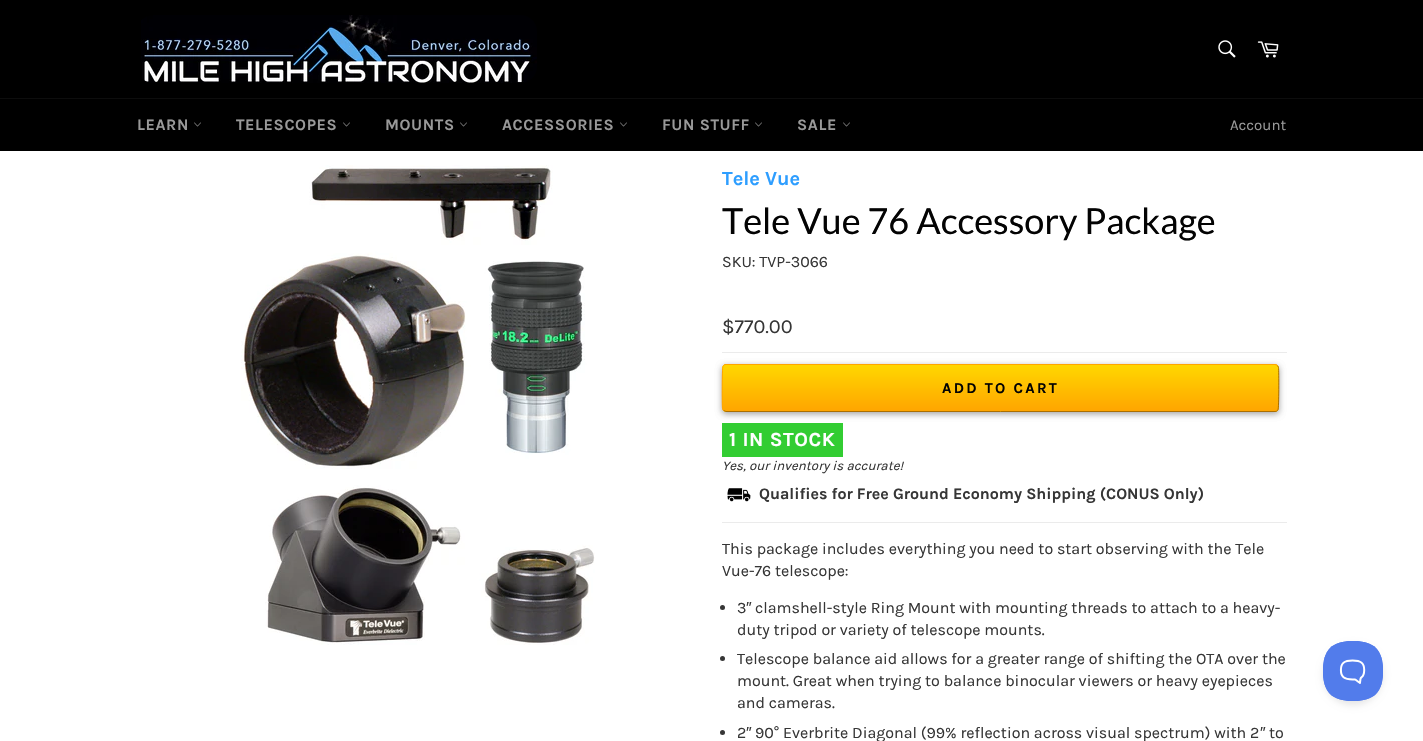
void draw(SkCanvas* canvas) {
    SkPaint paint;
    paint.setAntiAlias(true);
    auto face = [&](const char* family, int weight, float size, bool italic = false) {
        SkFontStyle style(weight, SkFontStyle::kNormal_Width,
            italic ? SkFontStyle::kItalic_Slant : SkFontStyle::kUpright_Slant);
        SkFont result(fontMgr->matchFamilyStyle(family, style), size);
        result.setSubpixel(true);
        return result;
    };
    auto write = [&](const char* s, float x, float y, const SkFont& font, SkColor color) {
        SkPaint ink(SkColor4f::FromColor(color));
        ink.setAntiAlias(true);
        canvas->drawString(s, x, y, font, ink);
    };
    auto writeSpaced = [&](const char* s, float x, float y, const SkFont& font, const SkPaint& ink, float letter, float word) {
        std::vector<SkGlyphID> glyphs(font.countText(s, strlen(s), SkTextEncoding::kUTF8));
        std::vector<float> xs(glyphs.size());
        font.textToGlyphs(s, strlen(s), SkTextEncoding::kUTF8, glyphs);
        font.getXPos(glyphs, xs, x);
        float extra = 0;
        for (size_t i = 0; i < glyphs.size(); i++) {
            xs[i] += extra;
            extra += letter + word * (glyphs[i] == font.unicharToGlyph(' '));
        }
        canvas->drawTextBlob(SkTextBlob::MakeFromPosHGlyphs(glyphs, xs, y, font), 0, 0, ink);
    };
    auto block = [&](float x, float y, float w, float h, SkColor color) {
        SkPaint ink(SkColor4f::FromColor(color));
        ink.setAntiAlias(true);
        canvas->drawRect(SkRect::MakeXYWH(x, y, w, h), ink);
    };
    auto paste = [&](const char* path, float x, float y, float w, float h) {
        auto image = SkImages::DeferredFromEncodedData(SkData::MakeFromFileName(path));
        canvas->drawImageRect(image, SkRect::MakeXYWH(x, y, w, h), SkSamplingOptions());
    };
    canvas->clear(SK_ColorBLACK);
    paste("pic1.png", 141, 15, 396, 68);
    paste("pic2.png", 1218, 40, 18, 18);
    paste("pic3.png", 1257, 41, 22, 17);
    block(0, 98, 1423, 1, SkColorSetRGB(13, 13, 13));
    auto kFont1 = face("Karla", 700, 16);
    paint.setColor(SkColorSetRGB(153, 153, 153));
    writeSpaced("LEARN", 137, 130, kFont1, paint, 0.6f, 0);
    paste("pic4.png", 194, 122, 7, 5);
    writeSpaced("TELESCOPES", 236, 130, kFont1, paint, 0.6f, 0);
    paste("pic4.png", 343, 122, 7, 5);
    writeSpaced("MOUNTS", 385, 130, kFont1, paint, 0.6f, 0);
    paste("pic4.png", 460, 122, 7, 5);
    writeSpaced("ACCESSORIES", 502, 130, kFont1, paint, 0.6f, 0);
    paste("pic4.png", 620, 122, 7, 5);
    writeSpaced("FUN STUFF", 662, 130, kFont1, paint, 0.6f, 0);
    paste("pic4.png", 755, 122, 7, 5);
    writeSpaced("SALE", 797, 130, kFont1, paint, 0.6f, 0);
    paste("pic4.png", 843, 122, 7, 5);
    auto kFont2 = face("Karla", 400, 15);
    write("Account", 1230, 130, kFont2, SkColorSetRGB(153, 153, 153));
    block(0, 151, 1423, 590, SK_ColorWHITE);
    paste("pic5.png", 241, 165, 354, 480);
    auto kFont3 = face("Karla", 700, 20);
    write("Tele Vue", 722, 185, kFont3, SkColorSetRGB(46, 158, 255));
    auto kFont4 = face("Lato", 400, 36);
    write("Tele Vue 76 Accessory Package", 722, 234, kFont4, SkColorSetRGB(3, 3, 3));
    auto kFont5 = face("Karla", 400, 16);
    write("SKU: TVP-3066", 722, 267, kFont5, SkColorSetRGB(54, 54, 54));
    auto kFont6 = face("Karla", 400, 20);
    write("$770.00", 722, 333, kFont6, SkColorSetRGB(54, 54, 54));
    block(722, 352, 565, 1, SkColorSetRGB(235, 235, 235));
    paint.setColor(SkColorSetARGB(48, 0, 0, 0));
    paint.setMaskFilter(SkMaskFilter::MakeBlur(kNormal_SkBlurStyle, 3));
    canvas->drawRoundRect(SkRect::MakeXYWH(722, 366, 557, 48), 4, 4, paint);
    paint.setMaskFilter(nullptr);
    paint.setColor(SkColorSetARGB(51, 0, 0, 0));
    paint.setMaskFilter(SkMaskFilter::MakeBlur(kNormal_SkBlurStyle, 3));
    canvas->drawRoundRect(SkRect::MakeXYWH(722, 366, 557, 48), 4, 4, paint);
    paint.setMaskFilter(nullptr);
    canvas->save();
    canvas->clipPath(SkPathBuilder().moveTo(726, 364).lineTo(1275, 364).cubicTo(1277, 364, 1279, 366, 1279, 368).lineTo(1279, 408).cubicTo(1279, 410, 1277, 412, 1275, 412).lineTo(726, 412).cubicTo(724, 412, 722, 410, 722, 408).lineTo(722, 368).cubicTo(722, 366, 724, 364, 726, 364).close().detach(), true);
    {
        const SkColor colors[] = {SkColorSetRGB(255, 215, 0), SkColorSetRGB(255, 165, 0)};
        const float stops[] = {0, 1};
        const SkPoint ends[] = {{1001, 319}, {1001, 365}};
        paint.setShader(SkGradientShader::MakeLinear(ends, colors, stops, 2, SkTileMode::kClamp));
        paint.setAlpha(255);
    }
    canvas->drawRect(SkRect::MakeXYWH(722, 364, 557, 1), paint);
    {
        const SkColor colors[] = {SkColorSetRGB(255, 215, 0), SkColorSetRGB(255, 165, 0)};
        const float stops[] = {0, 1};
        const SkPoint ends[] = {{1001, 365}, {1001, 411}};
        paint.setShader(SkGradientShader::MakeLinear(ends, colors, stops, 2, SkTileMode::kClamp));
        paint.setAlpha(255);
    }
    canvas->drawRect(SkRect::MakeXYWH(722, 365, 557, 46), paint);
    {
        const SkColor colors[] = {SkColorSetRGB(255, 215, 0), SkColorSetRGB(255, 165, 0)};
        const float stops[] = {0, 1};
        const SkPoint ends[] = {{1001, 411}, {1001, 457}};
        paint.setShader(SkGradientShader::MakeLinear(ends, colors, stops, 2, SkTileMode::kClamp));
        paint.setAlpha(255);
    }
    canvas->drawRect(SkRect::MakeXYWH(722, 411, 557, 1), paint);
    canvas->restore();
    paint.setStyle(SkPaint::kStroke_Style);
    paint.setStrokeWidth(1);
    paint.setShader(nullptr);
    paint.setColor(SkColorSetRGB(170, 110, 0));
    canvas->drawPath(SkPathBuilder().moveTo(1277.5f, 365.5f).lineTo(1278.5f, 367.5f).cubicTo(1279, 371.5f, 1279, 408, 1278, 409.5f).cubicTo(1277.5f, 411, 1276.5f, 411.5f, 1275, 411.5f).lineTo(726, 411.5f).lineTo(723.5f, 410.5f).detach(), paint);
    paint.setColor(SkColorSetRGB(255, 165, 0));
    canvas->drawPath(SkPathBuilder().moveTo(723.5f, 410.5f).lineTo(722.5f, 408.5f).cubicTo(722, 404.5f, 722, 368, 723, 366.5f).cubicTo(723.5f, 365, 724.5f, 364.5f, 726, 364.5f).lineTo(1275, 364.5f).lineTo(1277.5f, 365.5f).detach(), paint);
    auto kFont7 = face("Karla", 700, 15);
    paint.setStyle(SkPaint::kFill_Style);
    paint.setColor(SkColorSetRGB(3, 3, 3));
    writeSpaced("ADD TO CART", 942, 393, kFont7, paint, 2.25f, 0);
    block(722, 423, 121, 34, SkColorSetRGB(50, 205, 50));
    paint.setColor(SK_ColorWHITE);
    writeSpaced("1 IN STOCK", 729, 446, kFont3, paint, 0.6f, 0);
    auto kFont8 = face("Karla", 400, 13.3f, true);
    write("Yes, our inventory is accurate!", 722, 470, kFont8, SkColorSetRGB(54, 54, 54));
    paste("pic6.png", 727, 488, 24, 14);
    write("Qualifies for Free Ground Economy Shipping (CONUS Only)", 759, 499, kFont1, SkColorSetRGB(54, 54, 54));
    block(722, 522, 565, 1, SkColorSetRGB(235, 235, 235));
    write("This package includes everything you need to start observing with the Tele", 722, 554, kFont5, SkColorSetRGB(54, 54, 54));
    write("Vue-76 telescope:", 722, 576, kFont5, SkColorSetRGB(54, 54, 54));
    paint.setColor(SkColorSetRGB(54, 54, 54));
    canvas->drawCircle(722.5f, 607.5f, 2.5f, paint);
    write("3", 737, 613, kFont5, SkColorSetRGB(54, 54, 54));
    auto kFont9 = face("Liberation Sans", 400, 16);
    write("″", 746, 613, kFont9, SkColorSetRGB(54, 54, 54));
    write("clamshell-style Ring Mount with mounting threads to attach to a heavy-", 755, 613, kFont5, SkColorSetRGB(54, 54, 54));
    write("duty tripod or variety of telescope mounts.", 737, 635, kFont5, SkColorSetRGB(54, 54, 54));
    canvas->drawCircle(722.5f, 658.5f, 2.5f, paint);
    write("Telescope balance aid allows for a greater range of shifting the OTA over the", 737, 664, kFont5, SkColorSetRGB(54, 54, 54));
    write("mount. Great when trying to balance binocular viewers or heavy eyepieces", 737, 686, kFont5, SkColorSetRGB(54, 54, 54));
    write("and cameras.", 737, 708, kFont5, SkColorSetRGB(54, 54, 54));
    canvas->drawCircle(722.5f, 732.5f, 2.5f, paint);
    write("2", 737, 738, kFont5, SkColorSetRGB(54, 54, 54));
    write("″", 746, 738, kFont9, SkColorSetRGB(54, 54, 54));
    write("90° Everbrite Diagonal (99% reflection across visual spectrum) with 2", 755, 738, kFont5, SkColorSetRGB(54, 54, 54));
    write("″", 1260, 738, kFont9, SkColorSetRGB(54, 54, 54));
    write("to", 1269, 738, kFont5, SkColorSetRGB(54, 54, 54));
    paint.setColor(SkColorSetARGB(26, 0, 0, 0));
    paint.setMaskFilter(SkMaskFilter::MakeBlur(kNormal_SkBlurStyle, 3.5f));
    canvas->drawRoundRect(SkRect::MakeXYWH(1323, 645, 60, 60), 30, 30, paint);
    paint.setMaskFilter(nullptr);
    paste("pic7.png", 1323, 641, 60, 60);
}
